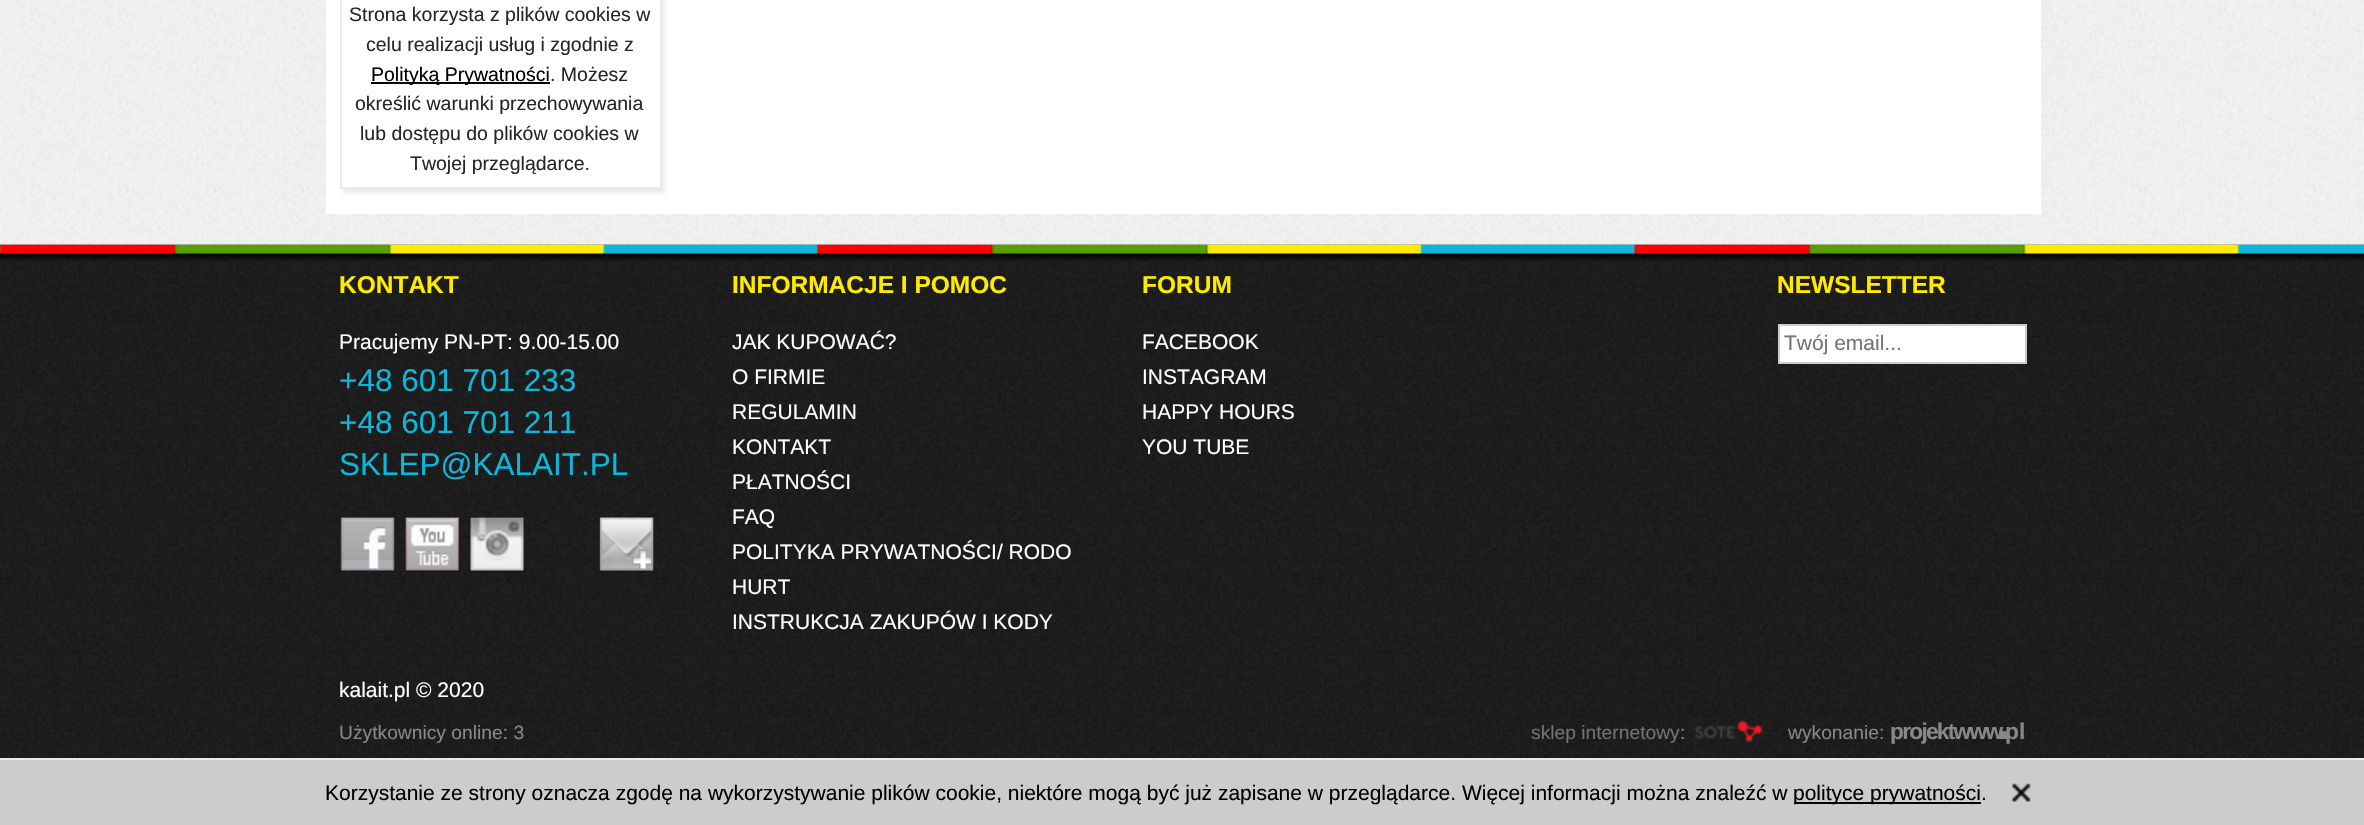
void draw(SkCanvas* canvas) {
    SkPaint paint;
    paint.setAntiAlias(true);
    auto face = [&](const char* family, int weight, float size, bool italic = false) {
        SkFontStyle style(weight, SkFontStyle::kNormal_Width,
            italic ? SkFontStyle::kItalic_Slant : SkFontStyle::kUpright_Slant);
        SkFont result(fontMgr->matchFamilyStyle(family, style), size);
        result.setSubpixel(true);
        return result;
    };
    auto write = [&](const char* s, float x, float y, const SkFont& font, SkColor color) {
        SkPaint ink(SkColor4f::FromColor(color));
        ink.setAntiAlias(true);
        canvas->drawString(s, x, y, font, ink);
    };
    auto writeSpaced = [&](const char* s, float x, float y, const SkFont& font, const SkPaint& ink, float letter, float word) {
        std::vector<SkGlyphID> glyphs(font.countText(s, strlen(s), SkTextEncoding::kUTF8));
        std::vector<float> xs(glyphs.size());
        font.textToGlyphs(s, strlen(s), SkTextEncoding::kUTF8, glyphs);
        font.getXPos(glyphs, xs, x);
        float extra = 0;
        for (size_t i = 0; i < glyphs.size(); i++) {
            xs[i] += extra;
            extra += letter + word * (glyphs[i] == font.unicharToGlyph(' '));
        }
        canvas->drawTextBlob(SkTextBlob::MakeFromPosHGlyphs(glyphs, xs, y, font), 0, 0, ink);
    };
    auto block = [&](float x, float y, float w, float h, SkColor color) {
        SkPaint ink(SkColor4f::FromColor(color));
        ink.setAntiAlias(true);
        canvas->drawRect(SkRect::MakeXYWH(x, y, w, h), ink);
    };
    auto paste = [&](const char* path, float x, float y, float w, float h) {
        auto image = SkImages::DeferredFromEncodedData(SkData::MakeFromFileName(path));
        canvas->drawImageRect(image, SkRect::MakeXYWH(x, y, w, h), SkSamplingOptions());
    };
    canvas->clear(SK_ColorWHITE);
    paste("pic1.png", 0, 0, 2364, 245);
    block(326, 0, 1715, 214, SK_ColorWHITE);
    paint.setColor(SkColorSetRGB(234, 234, 234));
    paint.setMaskFilter(SkMaskFilter::MakeBlur(kNormal_SkBlurStyle, 2));
    canvas->drawRect(SkRect::MakeXYWH(343, -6, 322, 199), paint);
    paint.setMaskFilter(nullptr);
    paint.setColor(SK_ColorWHITE);
    canvas->drawRect(SkRect::MakeXYWH(341, -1, 320, 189), paint);
    paint.setStyle(SkPaint::kStroke_Style);
    paint.setStrokeWidth(2);
    paint.setColor(SkColorSetRGB(234, 234, 234));
    canvas->drawRect(SkRect::MakeXYWH(341, -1, 320, 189), paint);
    auto kFont1 = face("Liberation Sans", 400, 19.5f);
    write("Strona korzysta z plików cookies w", 349, 21, kFont1, SkColorSetRGB(38, 38, 38));
    write("celu realizacji usług i zgodnie z", 366, 51, kFont1, SkColorSetRGB(38, 38, 38));
    block(371, 82, 179, 2, SK_ColorBLACK);
    write("Polityką Prywatności", 371, 81, kFont1, SK_ColorBLACK);
    write(". Możesz", 550, 81, kFont1, SkColorSetRGB(38, 38, 38));
    write("określić warunki przechowywania", 355, 110, kFont1, SkColorSetRGB(38, 38, 38));
    write("lub dostępu do plików cookies w", 360, 140, kFont1, SkColorSetRGB(38, 38, 38));
    write("Twojej przeglądarce.", 410, 170, kFont1, SkColorSetRGB(38, 38, 38));
    paste("pic2.png", 0, 244, 2364, 514);
    paste("pic3.png", 0, 244, 2364, 17);
    block(0, 758, 2364, 2, SkColorSetRGB(234, 234, 234));
    auto kFont2 = face("Liberation Sans", 700, 24.5f);
    write("KONTAKT", 339, 293, kFont2, SkColorSetRGB(255, 234, 0));
    auto kFont3 = face("Liberation Sans", 400, 21);
    write("Pracujemy PN-PT: 9.00-15.00", 339, 349, kFont3, SK_ColorWHITE);
    auto kFont4 = face("Liberation Sans", 400, 31.5f);
    write("+48 601 701 233", 339, 391, kFont4, SkColorSetRGB(11, 184, 220));
    write("+48 601 701 211", 339, 433, kFont4, SkColorSetRGB(11, 184, 220));
    write("SKLEP@KALAIT.PL", 339, 475, kFont4, SkColorSetRGB(11, 184, 220));
    paste("pic4.png", 340, 517, 55, 54);
    paste("pic5.png", 340, 517, 55, 55);
    paste("pic6.png", 405, 517, 54, 55);
    paste("pic7.png", 405, 517, 54, 55);
    paste("pic8.png", 470, 517, 54, 55);
    paste("pic9.png", 470, 517, 54, 55);
    paste("pic10.png", 599, 517, 55, 55);
    paste("pic11.png", 599, 517, 55, 55);
    write("INFORMACJE I POMOC", 732, 293, kFont2, SkColorSetRGB(255, 234, 0));
    write("JAK KUPOWAĆ?", 732, 349, kFont3, SK_ColorWHITE);
    write("O FIRMIE", 732, 384, kFont3, SK_ColorWHITE);
    write("REGULAMIN", 732, 419, kFont3, SK_ColorWHITE);
    write("KONTAKT", 732, 454, kFont3, SK_ColorWHITE);
    write("PŁATNOŚCI", 732, 489, kFont3, SK_ColorWHITE);
    write("FAQ", 732, 524, kFont3, SK_ColorWHITE);
    write("POLITYKA PRYWATNOŚCI/ RODO", 732, 559, kFont3, SK_ColorWHITE);
    write("HURT", 732, 594, kFont3, SK_ColorWHITE);
    write("INSTRUKCJA ZAKUPÓW I KODY", 732, 629, kFont3, SK_ColorWHITE);
    write("FORUM", 1142, 293, kFont2, SkColorSetRGB(255, 234, 0));
    write("FACEBOOK", 1142, 349, kFont3, SK_ColorWHITE);
    write("INSTAGRAM", 1142, 384, kFont3, SK_ColorWHITE);
    write("HAPPY HOURS", 1142, 419, kFont3, SK_ColorWHITE);
    write("YOU TUBE", 1142, 454, kFont3, SK_ColorWHITE);
    write("NEWSLETTER", 1777, 293, kFont2, SkColorSetRGB(255, 234, 0));
    paint.setStyle(SkPaint::kFill_Style);
    paint.setColor(SK_ColorWHITE);
    canvas->drawRect(SkRect::MakeXYWH(1779, 325, 247, 38), paint);
    paint.setStyle(SkPaint::kStroke_Style);
    paint.setColor(SkColorSetRGB(204, 204, 204));
    canvas->drawRect(SkRect::MakeXYWH(1779, 325, 247, 38), paint);
    write("Twój email...", 1784, 350, kFont3, SkColorSetRGB(115, 115, 115));
    write("kalait.pl © 2020", 339, 697, kFont3, SK_ColorWHITE);
    auto kFont5 = face("Liberation Sans", 400, 19.25f);
    write("Użytkownicy online: 3", 339, 739, kFont5, SkColorSetRGB(136, 136, 136));
    write("sklep internetowy", 1531, 739, kFont5, SkColorSetRGB(115, 115, 115));
    write(":", 1680, 739, kFont5, SkColorSetRGB(136, 136, 136));
    paste("pic12.png", 1694, 720, 69, 22);
    write("wykonanie:", 1788, 739, kFont5, SkColorSetRGB(136, 136, 136));
    auto kFont6 = face("Liberation Sans", 700, 22.75f);
    paint.setStyle(SkPaint::kFill_Style);
    paint.setColor(SkColorSetRGB(136, 136, 136));
    writeSpaced("projektwww", 1890, 739, kFont6, paint, -1.75f, 0);
    auto kFont7 = face("Liberation Sans", 700, 52);
    write(".", 1996, 739, kFont7, SkColorSetRGB(136, 136, 136));
    write("pl", 2005, 739, kFont6, SkColorSetRGB(136, 136, 136));
    block(0, 760, 2364, 65, SkColorSetRGB(204, 204, 204));
    write("Korzystanie ze strony oznacza zgodę na wykorzystywanie plików cookie, niektóre mogą być już zapisane w przeglądarce. Więcej informacji można znaleźć w", 325, 800, kFont3, SK_ColorBLACK);
    block(1794, 802, 187, 2, SK_ColorBLACK);
    write("polityce prywatności.", 1793, 800, kFont3, SK_ColorBLACK);
    paste("pic13.png", 2012, 783, 19, 19);
}
